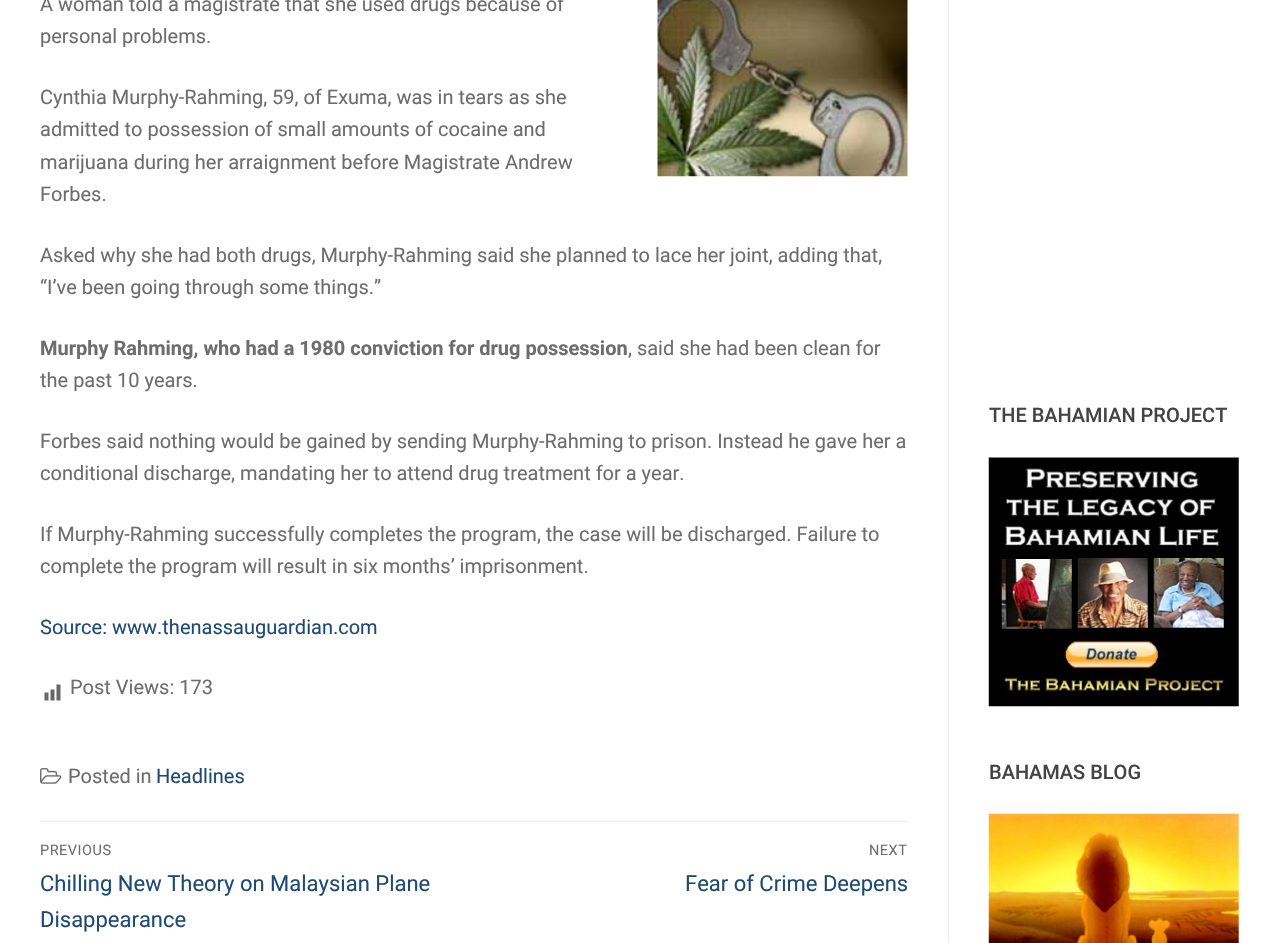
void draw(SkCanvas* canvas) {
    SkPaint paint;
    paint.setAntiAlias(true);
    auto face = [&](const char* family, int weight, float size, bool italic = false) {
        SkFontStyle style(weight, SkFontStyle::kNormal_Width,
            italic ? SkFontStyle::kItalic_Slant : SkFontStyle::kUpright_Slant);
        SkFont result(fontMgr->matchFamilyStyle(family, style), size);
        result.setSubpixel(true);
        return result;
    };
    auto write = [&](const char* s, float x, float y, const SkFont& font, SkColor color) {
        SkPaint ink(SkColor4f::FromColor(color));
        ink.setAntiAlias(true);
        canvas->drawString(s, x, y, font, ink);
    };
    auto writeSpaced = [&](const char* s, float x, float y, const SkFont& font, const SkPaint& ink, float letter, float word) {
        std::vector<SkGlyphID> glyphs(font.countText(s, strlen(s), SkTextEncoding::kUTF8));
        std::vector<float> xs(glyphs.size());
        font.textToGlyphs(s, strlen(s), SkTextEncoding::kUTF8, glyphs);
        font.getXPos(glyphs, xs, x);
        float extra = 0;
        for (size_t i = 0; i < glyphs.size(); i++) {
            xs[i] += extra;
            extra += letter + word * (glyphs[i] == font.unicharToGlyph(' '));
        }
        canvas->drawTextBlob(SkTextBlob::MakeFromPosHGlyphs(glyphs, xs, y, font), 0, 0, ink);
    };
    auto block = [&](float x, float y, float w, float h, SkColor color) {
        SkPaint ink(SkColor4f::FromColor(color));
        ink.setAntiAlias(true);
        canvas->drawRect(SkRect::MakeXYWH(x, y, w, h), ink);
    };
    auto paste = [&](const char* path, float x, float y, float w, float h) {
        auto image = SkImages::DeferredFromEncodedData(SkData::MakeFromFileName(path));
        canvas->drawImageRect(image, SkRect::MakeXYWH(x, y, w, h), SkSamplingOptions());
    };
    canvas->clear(SK_ColorWHITE);
    block(948, 0, 1, 943, SkColorSetRGB(234, 236, 238));
    auto kFont1 = face("Roboto", 400, 20);
    write("A woman told a magistrate that she used drugs because of", 40, 11, kFont1, SkColorSetRGB(109, 109, 109));
    paste("pic1.png", 657, 0, 251, 177);
    write("personal problems.", 40, 43, kFont1, SkColorSetRGB(109, 109, 109));
    write("Cynthia Murphy-Rahming, 59, of Exuma, was in tears as she", 40, 104, kFont1, SkColorSetRGB(109, 109, 109));
    write("admitted to possession of small amounts of cocaine and", 40, 136, kFont1, SkColorSetRGB(109, 109, 109));
    write("marijuana during her arraignment before Magistrate Andrew", 40, 169, kFont1, SkColorSetRGB(109, 109, 109));
    write("Forbes.", 40, 201, kFont1, SkColorSetRGB(109, 109, 109));
    write("Asked why she had both drugs, Murphy-Rahming said she planned to lace her joint, adding that,", 40, 262, kFont1, SkColorSetRGB(109, 109, 109));
    write("“I’ve been going through some things.”", 40, 294, kFont1, SkColorSetRGB(109, 109, 109));
    auto kFont2 = face("Roboto", 700, 20);
    write("Murphy Rahming, who had a 1980 conviction for drug possession", 40, 355, kFont2, SkColorSetRGB(109, 109, 109));
    write(", said she had been clean for", 628, 355, kFont1, SkColorSetRGB(109, 109, 109));
    write("the past 10 years.", 40, 387, kFont1, SkColorSetRGB(109, 109, 109));
    write("Forbes said nothing would be gained by sending Murphy-Rahming to prison. Instead he gave her a", 40, 448, kFont1, SkColorSetRGB(109, 109, 109));
    write("conditional discharge, mandating her to attend drug treatment for a year.", 40, 480, kFont1, SkColorSetRGB(109, 109, 109));
    write("If Murphy-Rahming successfully completes the program, the case will be discharged. Failure to", 40, 541, kFont1, SkColorSetRGB(109, 109, 109));
    write("complete the program will result in six months’ imprisonment.", 40, 573, kFont1, SkColorSetRGB(109, 109, 109));
    write("Source: www.thenassauguardian.com", 40, 634, kFont1, SkColorSetRGB(30, 75, 117));
    paste("pic2.png", 44, 684, 17, 17);
    write("Post Views: 173", 70, 694, kFont1, SkColorSetRGB(109, 109, 109));
    paste("pic3.png", 40, 768, 22, 16);
    write("Posted in", 68, 783, kFont1, SkColorSetRGB(109, 109, 109));
    write("Headlines", 156, 783, kFont1, SkColorSetRGB(30, 75, 117));
    block(40, 821, 868, 1, SkColorSetRGB(234, 236, 238));
    auto kFont3 = face("Roboto", 400, 14.5f);
    paint.setColor(SkColorSetRGB(109, 109, 109));
    writeSpaced("PREVIOUS", 40, 855, kFont3, paint, 0.5f, 0);
    auto kFont4 = face("Roboto", 400, 22);
    write("Chilling New Theory on Malaysian Plane", 40, 891, kFont4, SkColorSetRGB(30, 75, 117));
    write("Disappearance", 40, 927, kFont4, SkColorSetRGB(30, 75, 117));
    writeSpaced("NEXT", 869, 855, kFont3, paint, 0.5f, 0);
    write("Fear of Crime Deepens", 685, 891, kFont4, SkColorSetRGB(30, 75, 117));
    auto kFont5 = face("Roboto", 500, 20);
    write("THE BAHAMIAN PROJECT", 989, 422, kFont5, SkColorSetRGB(68, 68, 68));
    paste("pic4.png", 988, 457, 251, 250);
    write("BAHAMAS BLOG", 989, 779, kFont5, SkColorSetRGB(68, 68, 68));
    paste("pic5.png", 988, 813, 251, 130);
}
